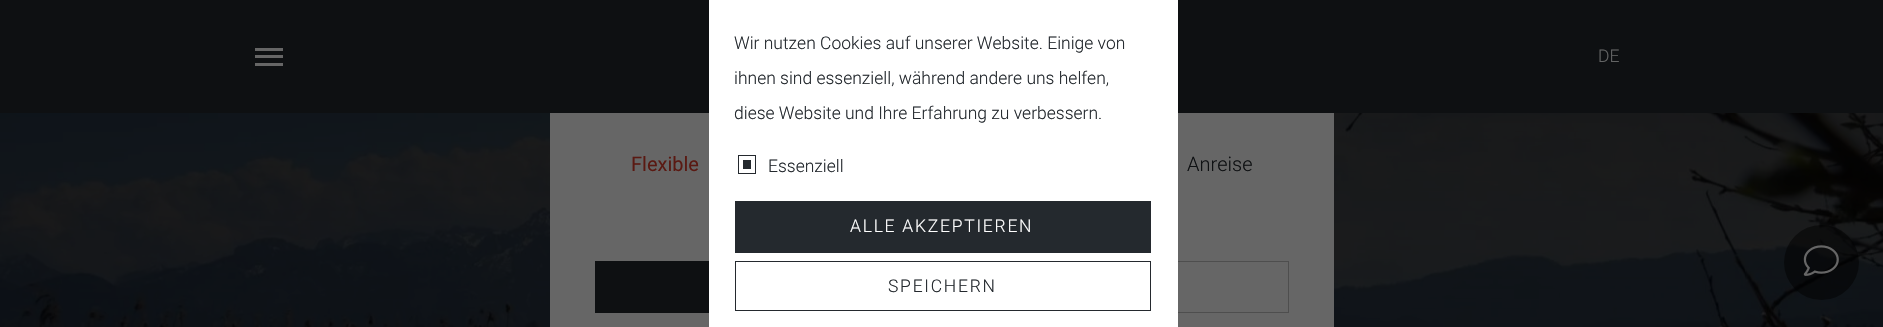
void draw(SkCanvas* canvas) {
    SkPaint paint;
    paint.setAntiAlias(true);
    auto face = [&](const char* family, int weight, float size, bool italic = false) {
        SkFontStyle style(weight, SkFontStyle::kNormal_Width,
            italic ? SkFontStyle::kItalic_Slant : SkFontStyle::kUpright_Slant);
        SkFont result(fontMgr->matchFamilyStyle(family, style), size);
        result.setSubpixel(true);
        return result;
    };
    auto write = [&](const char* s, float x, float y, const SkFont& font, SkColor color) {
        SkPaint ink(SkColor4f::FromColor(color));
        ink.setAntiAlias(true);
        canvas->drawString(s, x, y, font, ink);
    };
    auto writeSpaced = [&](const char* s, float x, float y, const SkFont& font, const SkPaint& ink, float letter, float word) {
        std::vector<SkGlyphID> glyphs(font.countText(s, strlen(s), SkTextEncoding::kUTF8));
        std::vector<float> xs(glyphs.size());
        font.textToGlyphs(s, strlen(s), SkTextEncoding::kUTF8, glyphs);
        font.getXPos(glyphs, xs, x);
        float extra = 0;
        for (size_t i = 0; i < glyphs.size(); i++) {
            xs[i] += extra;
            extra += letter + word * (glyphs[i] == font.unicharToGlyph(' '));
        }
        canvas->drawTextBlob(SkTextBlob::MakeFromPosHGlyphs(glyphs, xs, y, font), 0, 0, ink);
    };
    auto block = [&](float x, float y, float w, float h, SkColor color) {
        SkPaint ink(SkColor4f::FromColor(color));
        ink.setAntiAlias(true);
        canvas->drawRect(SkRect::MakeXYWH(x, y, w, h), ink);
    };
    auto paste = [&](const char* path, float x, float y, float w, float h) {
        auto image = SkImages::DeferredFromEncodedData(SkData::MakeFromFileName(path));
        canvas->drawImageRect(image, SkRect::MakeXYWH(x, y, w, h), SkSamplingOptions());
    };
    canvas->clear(SK_ColorWHITE);
    block(0, 0, 1883, 113, SkColorSetRGB(14, 16, 18));
    paste("pic1.png", 0, 113, 1883, 214);
    block(550, 113, 784, 214, SkColorSetRGB(102, 102, 102));
    paint.setStyle(SkPaint::kStroke_Style);
    paint.setStrokeWidth(1);
    paint.setColor(SkColorSetRGB(78, 78, 78));
    canvas->drawRect(SkRect::MakeXYWH(960.5f, 261.5f, 328, 51), paint);
    block(709, 0, 469, 327, SK_ColorWHITE);
    auto kFont1 = face("Roboto", 300, 17.5f);
    write("Wir nutzen Cookies auf unserer Website. Einige von", 734, 49, kFont1, SkColorSetRGB(36, 41, 46));
    write("ihnen sind essenziell, während andere uns helfen,", 734, 84, kFont1, SkColorSetRGB(36, 41, 46));
    write("diese Website und Ihre Erfahrung zu verbessern.", 734, 119, kFont1, SkColorSetRGB(36, 41, 46));
    block(738, 155, 18, 19, SkColorSetRGB(36, 41, 46));
    paint.setStrokeWidth(4);
    paint.setColor(SK_ColorWHITE);
    canvas->drawRect(SkRect::MakeXYWH(741, 158, 12, 13), paint);
    write("Essenziell", 768, 172, kFont1, SkColorSetRGB(36, 41, 46));
    block(735, 201, 416, 52, SkColorSetRGB(36, 41, 46));
    paint.setStyle(SkPaint::kFill_Style);
    writeSpaced("ALLE AKZEPTIEREN", 850, 232, kFont1, paint, 1.75f, 0);
    paint.setStyle(SkPaint::kStroke_Style);
    paint.setStrokeWidth(1);
    paint.setColor(SkColorSetRGB(36, 41, 46));
    canvas->drawRect(SkRect::MakeXYWH(735.5f, 261.5f, 415, 49), paint);
    paint.setStyle(SkPaint::kFill_Style);
    writeSpaced("SPEICHERN", 888, 292, kFont1, paint, 1.75f, 0);
    block(255, 48, 28, 3, SkColorSetRGB(102, 102, 102));
    block(255, 55, 28, 3, SkColorSetRGB(102, 102, 102));
    block(255, 63, 28, 3, SkColorSetRGB(102, 102, 102));
    write("DE", 1598, 62, kFont1, SkColorSetRGB(99, 100, 100));
    auto kFont2 = face("Roboto", 400, 20);
    write("Flexible", 631, 171, kFont2, SkColorSetRGB(90, 25, 18));
    auto kFont3 = face("Roboto", 300, 20);
    write("Anreise", 1187, 171, kFont3, SkColorSetRGB(14, 16, 18));
    block(595, 261, 114, 52, SkColorSetRGB(14, 16, 18));
    paint.setColor(SkColorSetARGB(128, 0, 0, 0));
    canvas->drawCircle(1821.5f, 262.5f, 37.5f, paint);
    paste("pic2.png", 1803, 245, 36, 31);
}
